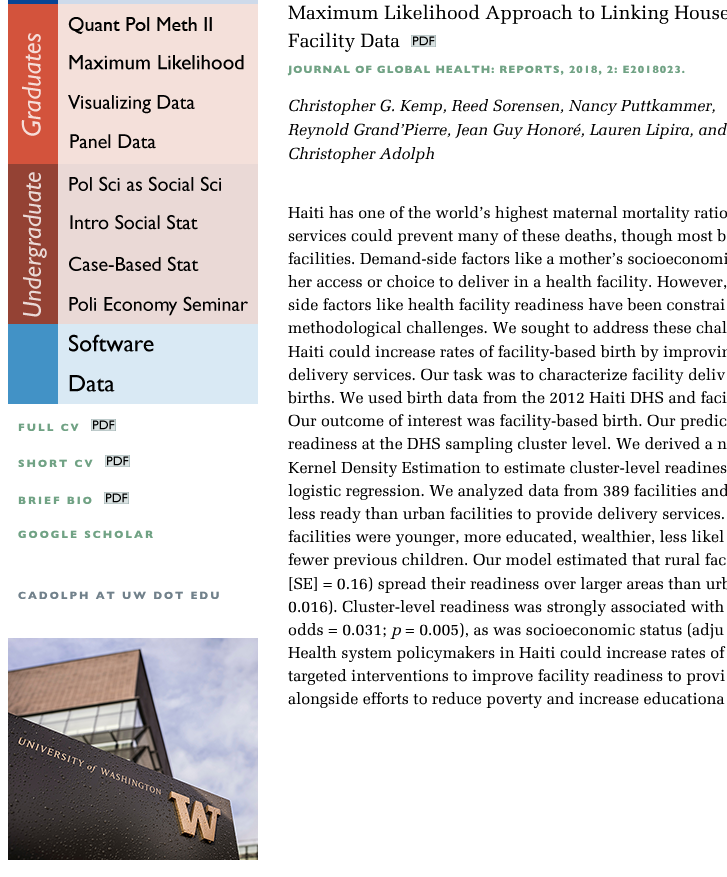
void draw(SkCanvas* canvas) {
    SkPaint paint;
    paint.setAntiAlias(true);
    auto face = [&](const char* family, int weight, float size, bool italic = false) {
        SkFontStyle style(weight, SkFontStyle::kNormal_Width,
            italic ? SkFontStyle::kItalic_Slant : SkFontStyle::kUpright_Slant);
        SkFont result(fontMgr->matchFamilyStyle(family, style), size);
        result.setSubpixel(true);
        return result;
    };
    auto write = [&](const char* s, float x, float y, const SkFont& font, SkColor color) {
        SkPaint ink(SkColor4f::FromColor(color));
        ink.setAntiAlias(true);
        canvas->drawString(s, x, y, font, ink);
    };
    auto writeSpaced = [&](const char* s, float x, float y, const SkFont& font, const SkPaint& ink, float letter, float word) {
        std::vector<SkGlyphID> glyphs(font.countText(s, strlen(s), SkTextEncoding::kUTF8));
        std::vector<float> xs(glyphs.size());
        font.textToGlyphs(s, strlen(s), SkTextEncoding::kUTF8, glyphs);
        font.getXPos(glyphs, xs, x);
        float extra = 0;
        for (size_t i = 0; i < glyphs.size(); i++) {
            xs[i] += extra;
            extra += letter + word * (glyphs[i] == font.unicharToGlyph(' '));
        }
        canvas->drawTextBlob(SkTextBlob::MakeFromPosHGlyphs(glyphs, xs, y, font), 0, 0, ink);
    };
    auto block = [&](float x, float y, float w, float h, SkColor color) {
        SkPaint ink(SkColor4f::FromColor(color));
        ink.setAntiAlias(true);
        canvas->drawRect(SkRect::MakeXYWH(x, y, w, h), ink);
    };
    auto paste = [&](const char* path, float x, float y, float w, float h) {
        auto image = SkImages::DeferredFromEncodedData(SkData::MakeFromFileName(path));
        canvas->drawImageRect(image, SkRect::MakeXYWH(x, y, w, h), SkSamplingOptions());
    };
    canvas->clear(SK_ColorWHITE);
    block(8, 0, 50, 4, SkColorSetRGB(8, 69, 148));
    paste("pic1.png", 8, 4, 50, 160);
    paste("pic2.png", 8, 164, 50, 160);
    block(8, 324, 50, 80, SkColorSetRGB(66, 146, 198));
    block(58, 0, 200, 4, SkColorSetRGB(206, 218, 234));
    paste("pic3.png", 58, 4, 200, 40);
    paste("pic4.png", 58, 44, 200, 40);
    paste("pic5.png", 58, 84, 200, 40);
    paste("pic6.png", 58, 124, 200, 40);
    paste("pic7.png", 58, 164, 200, 40);
    paste("pic8.png", 58, 204, 200, 40);
    paste("pic9.png", 58, 244, 200, 40);
    paste("pic10.png", 58, 284, 200, 40);
    paste("pic11.png", 58, 324, 200, 40);
    paste("pic12.png", 58, 364, 200, 40);
    auto kFont1 = face("Gill Sans", 700, 10.7f);
    paint.setColor(SkColorSetRGB(112, 162, 132));
    writeSpaced("FULL CV", 18, 431, kFont1, paint, 2, 0);
    paste("pic13.png", 91, 419, 25, 12);
    writeSpaced("SHORT CV", 18, 467, kFont1, paint, 2, 0);
    paste("pic13.png", 105, 455, 25, 12);
    writeSpaced("BRIEF BIO", 18, 504, kFont1, paint, 2, 0);
    paste("pic13.png", 104, 492, 25, 12);
    writeSpaced("GOOGLE SCHOLAR", 18, 538, kFont1, paint, 2, 0);
    paint.setColor(SkColorSetRGB(113, 129, 139));
    writeSpaced("CADOLPH AT UW DOT EDU", 18, 599, kFont1, paint, 2, 0);
    paste("pic14.png", 8, 638, 250, 222);
    auto kFont2 = face("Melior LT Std", 400, 19.2f);
    write("Maximum Likelihood Approach to Linking House", 288, 19, kFont2, SK_ColorBLACK);
    write("Facility Data", 288, 47, kFont2, SK_ColorBLACK);
    paste("pic13.png", 411, 35, 25, 12);
    paint.setColor(SkColorSetRGB(112, 162, 132));
    writeSpaced("JOURNAL OF GLOBAL HEALTH: REPORTS, 2018, 2: E2018023.", 288, 73, kFont1, paint, 1, 0);
    auto kFont3 = face("Melior LT Std", 400, 16, true);
    write("Christopher G. Kemp, Reed Sorensen, Nancy Puttkammer,", 288, 111, kFont3, SK_ColorBLACK);
    write("Reynold Grand’Pierre, Jean Guy Honoré, Lauren Lipira, and", 288, 135, kFont3, SK_ColorBLACK);
    write("Christopher Adolph", 288, 159, kFont3, SK_ColorBLACK);
    auto kFont4 = face("Melior LT Std", 400, 16);
    write("Haiti has one of the world’s highest maternal mortality ratio", 288, 218, kFont4, SK_ColorBLACK);
    write("services could prevent many of these deaths, though most b", 288, 241, kFont4, SK_ColorBLACK);
    write("facilities. Demand-side factors like a mother’s socioeconomi", 288, 264, kFont4, SK_ColorBLACK);
    write("her access or choice to deliver in a health facility. However,", 288, 287, kFont4, SK_ColorBLACK);
    write("side factors like health facility readiness have been constrai", 288, 310, kFont4, SK_ColorBLACK);
    write("methodological challenges. We sought to address these chal", 288, 333, kFont4, SK_ColorBLACK);
    write("Haiti could increase rates of facility-based birth by improvin", 288, 357, kFont4, SK_ColorBLACK);
    write("delivery services. Our task was to characterize facility deliv", 288, 380, kFont4, SK_ColorBLACK);
    write("births. We used birth data from the 2012 Haiti DHS and faci", 288, 403, kFont4, SK_ColorBLACK);
    write("Our outcome of interest was facility-based birth. Our predic", 288, 426, kFont4, SK_ColorBLACK);
    write("readiness at the DHS sampling cluster level. We derived a n", 288, 449, kFont4, SK_ColorBLACK);
    write("Kernel Density Estimation to estimate cluster-level readines", 288, 473, kFont4, SK_ColorBLACK);
    write("logistic regression. We analyzed data from 389 facilities and", 288, 496, kFont4, SK_ColorBLACK);
    write("less ready than urban facilities to provide delivery services.", 288, 519, kFont4, SK_ColorBLACK);
    write("facilities were younger, more educated, wealthier, less likel", 288, 542, kFont4, SK_ColorBLACK);
    write("fewer previous children. Our model estimated that rural fac", 288, 565, kFont4, SK_ColorBLACK);
    write("[SE] = 0.16) spread their readiness over larger areas than urb", 288, 589, kFont4, SK_ColorBLACK);
    write("0.016). Cluster-level readiness was strongly associated with", 288, 612, kFont4, SK_ColorBLACK);
    write("odds = 0.031;", 288, 635, kFont4, SK_ColorBLACK);
    auto kFont5 = face("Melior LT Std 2", 400, 16, true);
    write("p", 391, 635, kFont5, SK_ColorBLACK);
    write("= 0.005), as was socioeconomic status (adju", 405, 635, kFont4, SK_ColorBLACK);
    write("Health system policymakers in Haiti could increase rates of", 288, 658, kFont4, SK_ColorBLACK);
    write("targeted interventions to improve facility readiness to provi", 288, 681, kFont4, SK_ColorBLACK);
    write("alongside efforts to reduce poverty and increase educationa", 288, 704, kFont4, SK_ColorBLACK);
}
